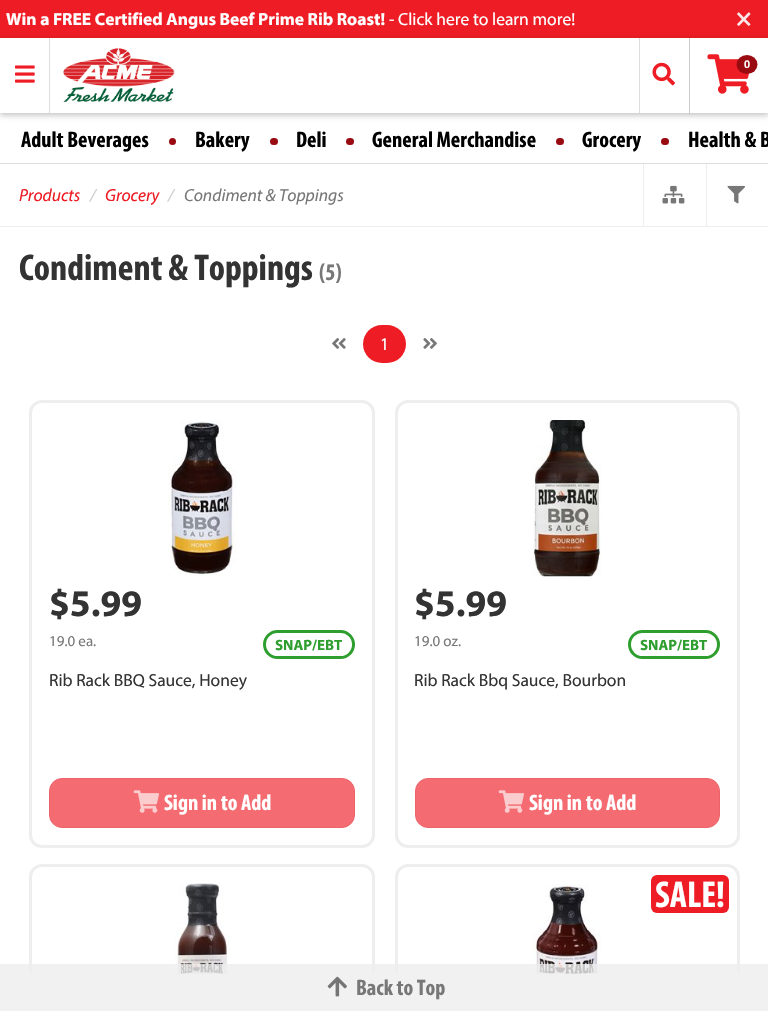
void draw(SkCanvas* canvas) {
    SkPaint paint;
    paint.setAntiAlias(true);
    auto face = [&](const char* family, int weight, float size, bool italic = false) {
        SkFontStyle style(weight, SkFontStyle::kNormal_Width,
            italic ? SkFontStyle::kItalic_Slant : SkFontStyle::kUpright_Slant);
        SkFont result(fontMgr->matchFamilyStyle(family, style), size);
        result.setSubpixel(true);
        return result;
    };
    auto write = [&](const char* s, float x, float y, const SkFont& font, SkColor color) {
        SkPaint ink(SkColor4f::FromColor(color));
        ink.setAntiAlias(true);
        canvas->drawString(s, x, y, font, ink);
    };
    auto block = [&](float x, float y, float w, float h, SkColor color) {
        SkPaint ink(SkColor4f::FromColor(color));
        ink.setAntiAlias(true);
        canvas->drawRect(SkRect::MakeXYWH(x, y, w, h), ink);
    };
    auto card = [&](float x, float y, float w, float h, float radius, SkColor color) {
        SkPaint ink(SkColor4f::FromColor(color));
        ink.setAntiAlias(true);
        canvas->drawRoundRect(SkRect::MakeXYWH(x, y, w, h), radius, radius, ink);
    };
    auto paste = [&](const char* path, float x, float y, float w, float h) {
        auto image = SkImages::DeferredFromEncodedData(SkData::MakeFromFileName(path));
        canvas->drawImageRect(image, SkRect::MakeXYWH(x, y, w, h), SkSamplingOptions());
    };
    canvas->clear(SK_ColorWHITE);
    block(0, 0, 768, 38, SkColorSetRGB(238, 28, 36));
    auto kFont1 = face("Myriad", 700, 17.5f);
    write("Win a FREE Certified Angus Beef Prime Rib Roast!", 6, 25, kFont1, SK_ColorWHITE);
    auto kFont2 = face("Myriad", 400, 17.5f);
    write("- Click here to learn more!", 389, 25, kFont2, SK_ColorWHITE);
    auto kFont3 = face("Myriad", 700, 26);
    write("×", 736, 26, kFont3, SkColorSetRGB(253, 232, 233));
    canvas->save();
    canvas->clipPath(SkPathBuilder(SkPathFillType::kEvenOdd).moveTo(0, 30).lineTo(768, 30).lineTo(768, 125).lineTo(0, 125).close().moveTo(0, 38).lineTo(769, 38).lineTo(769, 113).lineTo(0, 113).close().detach(), true);
    paint.setColor(SkColorSetARGB(64, 0, 0, 0));
    paint.setMaskFilter(SkMaskFilter::MakeBlur(kNormal_SkBlurStyle, 3));
    canvas->drawRect(SkRect::MakeXYWH(0, 40, 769, 75), paint);
    paint.setMaskFilter(nullptr);
    canvas->restore();
    block(49, 38, 1, 75, SkColorSetRGB(221, 221, 221));
    paste("pic1.png", 15, 65, 20, 18);
    paste("pic2.png", 63, 48, 112, 54);
    block(639, 38, 1, 75, SkColorSetRGB(221, 221, 221));
    paste("pic3.png", 652, 62, 23, 24);
    block(689, 38, 1, 77, SkColorSetRGB(204, 204, 204));
    paste("pic4.png", 707, 54, 43, 40);
    paint.setColor(SkColorSetRGB(153, 11, 17));
    canvas->drawOval(SkRect::MakeXYWH(736.5f, 55, 21, 19), paint);
    auto kFont4 = face("Liberation Sans", 700, 11);
    write("0", 744, 68, kFont4, SK_ColorWHITE);
    auto kFont5 = face("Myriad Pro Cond", 700, 22.5f);
    write("Adult Beverages", 21, 147, kFont5, SK_ColorBLACK);
    canvas->drawCircle(172.5f, 141.5f, 3.5f, paint);
    write("Bakery", 195, 147, kFont5, SK_ColorBLACK);
    card(270, 138, 8, 7, 3.5f, SkColorSetRGB(153, 11, 17));
    write("Deli", 296, 147, kFont5, SK_ColorBLACK);
    card(346, 138, 8, 7, 3.5f, SkColorSetRGB(153, 11, 17));
    write("General Merchandise", 372, 147, kFont5, SK_ColorBLACK);
    card(556, 138, 8, 7, 3.5f, SkColorSetRGB(153, 11, 17));
    write("Grocery", 582, 147, kFont5, SK_ColorBLACK);
    card(661, 138, 8, 7, 3.5f, SkColorSetRGB(153, 11, 17));
    write("Health & B", 688, 147, kFont5, SK_ColorBLACK);
    block(0, 163, 768, 1, SkColorSetRGB(221, 221, 221));
    block(0, 226, 768, 1, SkColorSetRGB(238, 238, 238));
    auto kFont6 = face("Myriad", 400, 17.5f, true);
    write("Products", 19, 201, kFont6, SkColorSetRGB(238, 28, 36));
    write("/", 90, 201, kFont6, SkColorSetRGB(204, 204, 204));
    write("Grocery", 105, 201, kFont6, SkColorSetRGB(238, 28, 36));
    write("/", 168, 201, kFont6, SkColorSetRGB(204, 204, 204));
    write("Condiment & Toppings", 184, 201, kFont6, SkColorSetRGB(119, 119, 119));
    block(643, 164, 1, 62, SkColorSetRGB(238, 238, 238));
    paste("pic5.png", 662, 185, 23, 19);
    block(706, 164, 1, 62, SkColorSetRGB(238, 238, 238));
    paste("pic6.png", 727, 185, 18, 19);
    auto kFont7 = face("Myriad Pro Cond", 700, 37.5f);
    write("Condiment & Toppings", 19, 280, kFont7, SkColorSetRGB(51, 51, 51));
    auto kFont8 = face("Myriad Pro Cond", 700, 24);
    write("(5)", 319, 280, kFont8, SkColorSetRGB(119, 119, 119));
    paste("pic7.png", 332, 338, 14, 11);
    card(363, 325, 43, 38, 19, SkColorSetRGB(238, 28, 36));
    write("1", 380, 350, kFont2, SK_ColorWHITE);
    paste("pic8.png", 423, 338, 14, 11);
    paint.setStyle(SkPaint::kStroke_Style);
    paint.setStrokeWidth(3);
    paint.setColor(SkColorSetRGB(238, 238, 238));
    canvas->drawRoundRect(SkRect::MakeXYWH(30.5f, 401.5f, 343, 445), 11.5f, 11.5f, paint);
    paste("pic9.png", 168, 420, 69, 156);
    auto kFont9 = face("Myriad", 700, 37.5f);
    write("$5.99", 49, 616, kFont9, SkColorSetRGB(51, 51, 51));
    auto kFont10 = face("Myriad", 400, 15);
    write("19.0 ea.", 49, 646, kFont10, SkColorSetRGB(119, 119, 119));
    paint.setColor(SkColorSetRGB(46, 158, 46));
    canvas->drawRoundRect(SkRect::MakeXYWH(264.5f, 631.5f, 89, 26), 13, 13, paint);
    auto kFont11 = face("Myriad", 700, 15);
    write("SNAP/EBT", 275, 650, kFont11, SkColorSetRGB(46, 158, 46));
    write("Rib Rack BBQ Sauce, Honey", 49, 686, kFont2, SkColorSetRGB(51, 51, 51));
    paint.setStyle(SkPaint::kFill_Style);
    paint.setColor(SkColorSetRGB(244, 107, 113));
    canvas->drawRoundRect(SkRect::MakeXYWH(49.5f, 778.5f, 305, 49), 12.5f, 12.5f, paint);
    paint.setStyle(SkPaint::kStroke_Style);
    paint.setStrokeWidth(1);
    paint.setColor(SkColorSetRGB(235, 100, 106));
    canvas->drawRoundRect(SkRect::MakeXYWH(49.5f, 778.5f, 305, 49), 12.5f, 12.5f, paint);
    paste("pic10.png", 133, 790, 26, 23);
    write("Sign in to Add", 164, 810, kFont5, SK_ColorWHITE);
    paint.setStrokeWidth(3);
    paint.setColor(SkColorSetRGB(238, 238, 238));
    canvas->drawRoundRect(SkRect::MakeXYWH(396.5f, 401.5f, 342, 445), 11.5f, 11.5f, paint);
    paste("pic11.png", 532, 420, 70, 157);
    write("$5.99", 414, 616, kFont9, SkColorSetRGB(51, 51, 51));
    write("19.0 oz.", 414, 646, kFont10, SkColorSetRGB(119, 119, 119));
    paint.setColor(SkColorSetRGB(46, 158, 46));
    canvas->drawRoundRect(SkRect::MakeXYWH(629.5f, 631.5f, 89, 26), 13, 13, paint);
    write("SNAP/EBT", 640, 650, kFont11, SkColorSetRGB(46, 158, 46));
    write("Rib Rack Bbq Sauce, Bourbon", 414, 686, kFont2, SkColorSetRGB(51, 51, 51));
    paint.setStyle(SkPaint::kFill_Style);
    paint.setColor(SkColorSetRGB(244, 107, 113));
    canvas->drawRoundRect(SkRect::MakeXYWH(415.5f, 778.5f, 304, 49), 12.5f, 12.5f, paint);
    paint.setStyle(SkPaint::kStroke_Style);
    paint.setStrokeWidth(1);
    paint.setColor(SkColorSetRGB(235, 100, 106));
    canvas->drawRoundRect(SkRect::MakeXYWH(415.5f, 778.5f, 304, 49), 12.5f, 12.5f, paint);
    paste("pic10.png", 498, 790, 26, 23);
    write("Sign in to Add", 529, 810, kFont5, SK_ColorWHITE);
    canvas->save();
    canvas->clipRect(SkRect::MakeXYWH(0, 164, 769, 810));
    paint.setStrokeWidth(3);
    paint.setColor(SkColorSetRGB(238, 238, 238));
    canvas->drawRoundRect(SkRect::MakeXYWH(30.5f, 865.5f, 343, 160), 11.5f, 11.5f, paint);
    canvas->restore();
    paste("pic12.png", 174, 883, 56, 91);
    canvas->save();
    canvas->clipRect(SkRect::MakeXYWH(0, 164, 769, 810));
    canvas->drawRoundRect(SkRect::MakeXYWH(396.5f, 865.5f, 342, 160), 11.5f, 11.5f, paint);
    canvas->restore();
    paste("pic13.png", 533, 884, 68, 90);
    card(651, 875, 78, 38, 6, SkColorSetRGB(238, 28, 36));
    write("SALE!", 655, 907, kFont7, SK_ColorWHITE);
    block(0, 964, 768, 47, SkColorSetARGB(204, 238, 238, 238));
    paste("pic14.png", 327, 976, 20, 21);
    write("Back to Top", 356, 995, kFont5, SkColorSetRGB(119, 119, 119));
}
